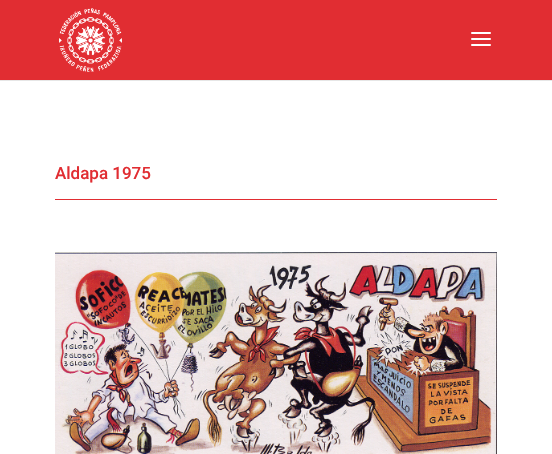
void draw(SkCanvas* canvas) {
    SkPaint paint;
    paint.setAntiAlias(true);
    auto face = [&](const char* family, int weight, float size, bool italic = false) {
        SkFontStyle style(weight, SkFontStyle::kNormal_Width,
            italic ? SkFontStyle::kItalic_Slant : SkFontStyle::kUpright_Slant);
        SkFont result(fontMgr->matchFamilyStyle(family, style), size);
        result.setSubpixel(true);
        return result;
    };
    auto write = [&](const char* s, float x, float y, const SkFont& font, SkColor color) {
        SkPaint ink(SkColor4f::FromColor(color));
        ink.setAntiAlias(true);
        canvas->drawString(s, x, y, font, ink);
    };
    auto block = [&](float x, float y, float w, float h, SkColor color) {
        SkPaint ink(SkColor4f::FromColor(color));
        ink.setAntiAlias(true);
        canvas->drawRect(SkRect::MakeXYWH(x, y, w, h), ink);
    };
    auto paste = [&](const char* path, float x, float y, float w, float h) {
        auto image = SkImages::DeferredFromEncodedData(SkData::MakeFromFileName(path));
        canvas->drawImageRect(image, SkRect::MakeXYWH(x, y, w, h), SkSamplingOptions());
    };
    canvas->clear(SK_ColorWHITE);
    block(0, 80, 552, 1, SkColorSetRGB(230, 230, 230));
    block(0, 0, 552, 80, SkColorSetRGB(225, 45, 50));
    paste("pic1.png", 59, 8, 63, 64);
    paste("pic2.png", 471, 32, 20, 14);
    auto kFont1 = face("Roboto", 500, 17);
    write("Aldapa 1975", 55, 179, kFont1, SkColorSetRGB(225, 45, 50));
    block(55, 199, 442, 1, SkColorSetRGB(225, 45, 50));
    paste("pic3.png", 55, 252, 442, 202);
}
